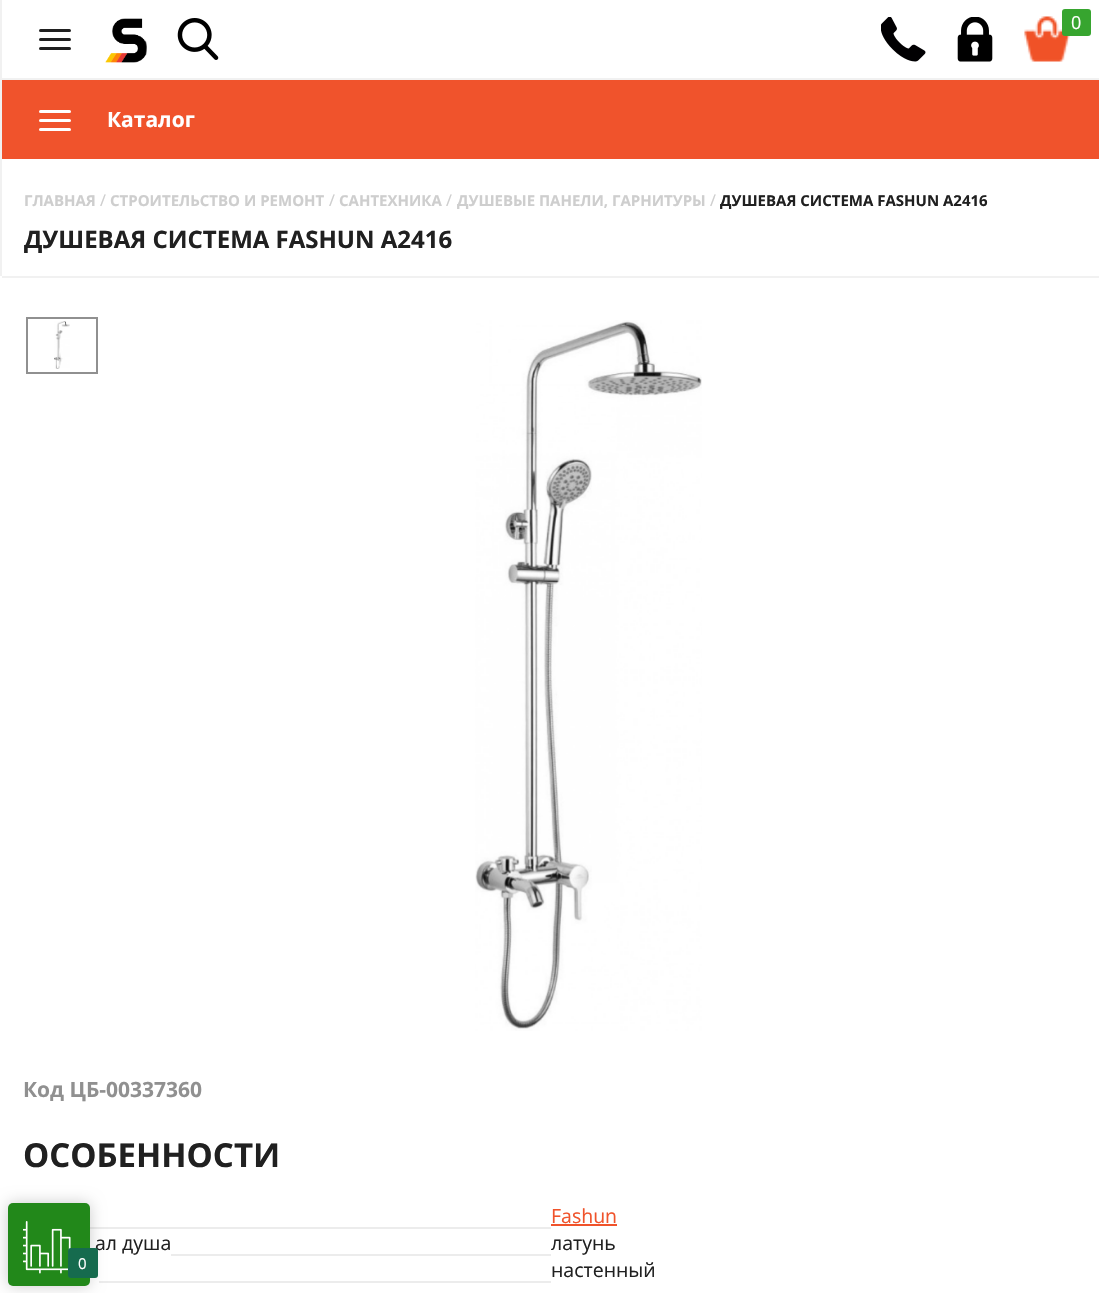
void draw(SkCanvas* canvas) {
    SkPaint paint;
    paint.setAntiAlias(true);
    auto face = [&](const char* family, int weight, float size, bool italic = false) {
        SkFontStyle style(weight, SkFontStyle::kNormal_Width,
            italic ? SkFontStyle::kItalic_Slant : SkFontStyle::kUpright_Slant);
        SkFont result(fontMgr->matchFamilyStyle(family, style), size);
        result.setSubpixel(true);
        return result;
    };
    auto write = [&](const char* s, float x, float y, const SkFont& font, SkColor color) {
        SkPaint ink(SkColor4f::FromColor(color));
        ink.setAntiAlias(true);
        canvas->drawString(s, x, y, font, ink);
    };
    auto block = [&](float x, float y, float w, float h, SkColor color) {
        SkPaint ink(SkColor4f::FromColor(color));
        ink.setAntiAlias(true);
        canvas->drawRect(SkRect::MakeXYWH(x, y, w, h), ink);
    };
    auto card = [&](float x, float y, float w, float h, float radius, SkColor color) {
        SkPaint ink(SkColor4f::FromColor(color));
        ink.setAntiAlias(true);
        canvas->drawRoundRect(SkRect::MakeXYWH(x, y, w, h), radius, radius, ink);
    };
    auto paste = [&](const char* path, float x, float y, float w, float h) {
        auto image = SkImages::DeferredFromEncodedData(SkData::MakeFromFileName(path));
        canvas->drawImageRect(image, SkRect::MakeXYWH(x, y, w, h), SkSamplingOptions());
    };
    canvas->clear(SK_ColorWHITE);
    block(0, 0, 2, 276, SkColorSetRGB(241, 241, 241));
    block(2, 78, 1097, 2, SkColorSetRGB(241, 241, 241));
    card(39, 29, 32, 3, 1.5f, SkColorSetRGB(32, 32, 32));
    card(39, 38, 32, 3, 1.5f, SkColorSetRGB(32, 32, 32));
    card(39, 47, 32, 3, 1.5f, SkColorSetRGB(32, 32, 32));
    paste("pic1.png", 105, 18, 42, 45);
    paste("pic2.png", 177, 18, 42, 42);
    paste("pic3.png", 881, 17, 45, 45);
    paste("pic4.png", 957, 17, 36, 45);
    paste("pic5.png", 1024, 16, 46, 46);
    card(1062, 9, 29, 27, 3, SkColorSetRGB(55, 165, 47));
    auto kFont1 = face("Open Sans", 400, 18);
    write("0", 1071, 29, kFont1, SK_ColorWHITE);
    block(2, 80, 1097, 79, SkColorSetRGB(240, 83, 44));
    card(39, 110, 32, 3, 1.5f, SK_ColorWHITE);
    card(39, 119, 32, 3, 1.5f, SK_ColorWHITE);
    card(39, 128, 32, 3, 1.5f, SK_ColorWHITE);
    auto kFont2 = face("Open Sans", 700, 21);
    write("Каталог", 107, 127, kFont2, SK_ColorWHITE);
    block(2, 276, 1097, 2, SkColorSetRGB(241, 241, 241));
    auto kFont3 = face("Open Sans", 700, 15);
    write("ГЛАВНАЯ", 24, 206, kFont3, SkColorSetRGB(206, 206, 206));
    auto kFont4 = face("Open Sans", 400, 16);
    write("/", 100, 206, kFont4, SkColorSetRGB(206, 206, 206));
    write("СТРОИТЕЛЬСТВО И РЕМОНТ", 110, 206, kFont3, SkColorSetRGB(206, 206, 206));
    write("/", 329, 206, kFont4, SkColorSetRGB(206, 206, 206));
    write("САНТЕХНИКА", 339, 206, kFont3, SkColorSetRGB(206, 206, 206));
    write("/", 446, 206, kFont4, SkColorSetRGB(206, 206, 206));
    write("ДУШЕВЫЕ ПАНЕЛИ, ГАРНИТУРЫ", 457, 206, kFont3, SkColorSetRGB(206, 206, 206));
    write("/", 710, 206, kFont4, SkColorSetRGB(206, 206, 206));
    write("ДУШЕВАЯ СИСТЕМА FASHUN A2416", 720, 206, kFont3, SkColorSetRGB(32, 32, 32));
    auto kFont5 = face("Open Sans", 700, 24);
    write("ДУШЕВАЯ СИСТЕМА FASHUN A2416", 24, 248, kFont5, SkColorSetRGB(32, 32, 32));
    paint.setStyle(SkPaint::kStroke_Style);
    paint.setStrokeWidth(2);
    paint.setColor(SkColorSetRGB(144, 144, 144));
    canvas->drawRect(SkRect::MakeXYWH(27, 318, 70, 55), paint);
    paste("pic6.png", 54, 321, 16, 48);
    paste("pic7.png", 475, 320, 227, 711);
    write("Код ЦБ-00337360", 23, 1097, kFont2, SkColorSetRGB(144, 144, 144));
    auto kFont6 = face("Open Sans", 700, 33);
    write("ОСОБЕННОСТИ", 23, 1167, kFont6, SkColorSetRGB(32, 32, 32));
    auto kFont7 = face("Open Sans", 400, 19.5f);
    write("Fashun", 551, 1223, kFont7, SkColorSetRGB(240, 83, 43));
    block(551, 1224, 66, 2, SkColorSetRGB(240, 83, 43));
    block(90, 1227, 461, 2, SkColorSetRGB(236, 236, 236));
    block(171, 1254, 380, 2, SkColorSetRGB(236, 236, 236));
    write("ал душа", 95, 1250, kFont7, SkColorSetRGB(32, 32, 32));
    write("латунь", 551, 1250, kFont7, SkColorSetRGB(32, 32, 32));
    write("настенный", 551, 1277, kFont7, SkColorSetRGB(32, 32, 32));
    block(99, 1281, 452, 2, SkColorSetRGB(236, 236, 236));
    paint.setStyle(SkPaint::kFill_Style);
    paint.setColor(SkColorSetARGB(51, 0, 0, 0));
    paint.setMaskFilter(SkMaskFilter::MakeBlur(kNormal_SkBlurStyle, 7.5f));
    canvas->drawRoundRect(SkRect::MakeXYWH(8, 1203, 82, 83), 5, 5, paint);
    paint.setMaskFilter(nullptr);
    card(8, 1203, 82, 83, 5, SkColorSetRGB(34, 136, 26));
    paste("pic8.png", 23, 1221, 48, 53);
    card(68, 1248, 30, 30, 3, SkColorSetRGB(22, 107, 78));
    auto kFont8 = face("Open Sans", 400, 15);
    write("0", 78, 1269, kFont8, SK_ColorWHITE);
}
